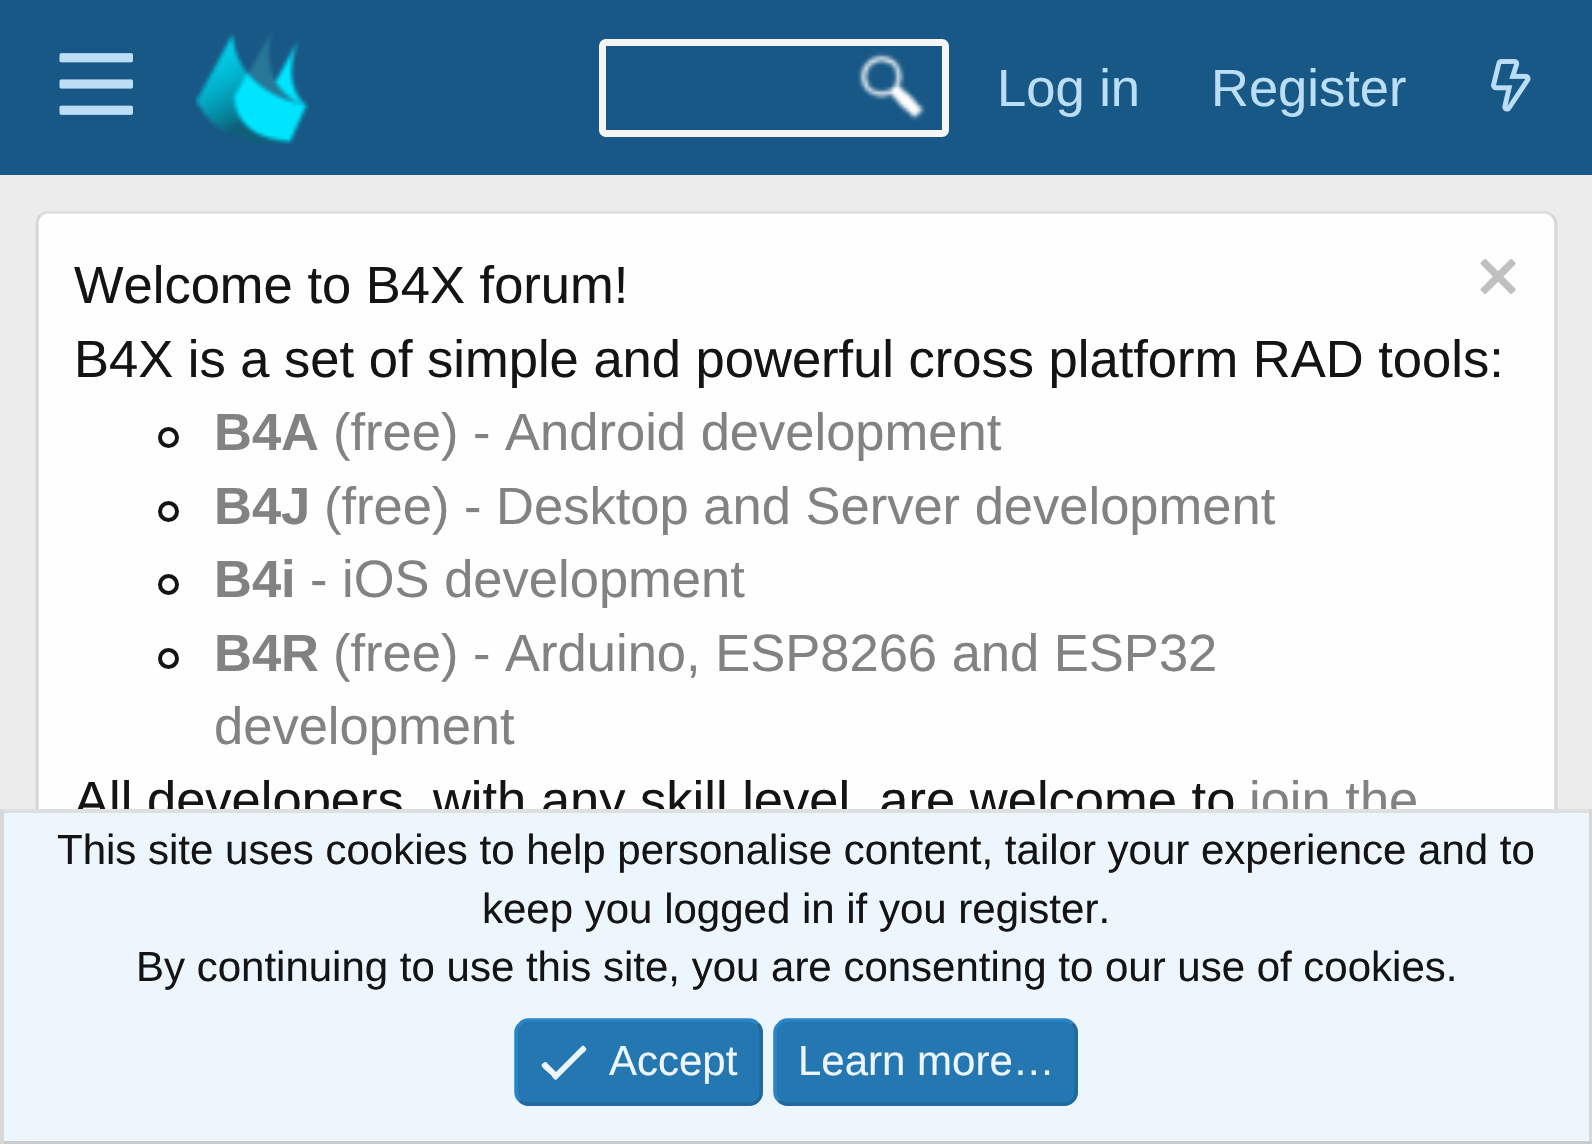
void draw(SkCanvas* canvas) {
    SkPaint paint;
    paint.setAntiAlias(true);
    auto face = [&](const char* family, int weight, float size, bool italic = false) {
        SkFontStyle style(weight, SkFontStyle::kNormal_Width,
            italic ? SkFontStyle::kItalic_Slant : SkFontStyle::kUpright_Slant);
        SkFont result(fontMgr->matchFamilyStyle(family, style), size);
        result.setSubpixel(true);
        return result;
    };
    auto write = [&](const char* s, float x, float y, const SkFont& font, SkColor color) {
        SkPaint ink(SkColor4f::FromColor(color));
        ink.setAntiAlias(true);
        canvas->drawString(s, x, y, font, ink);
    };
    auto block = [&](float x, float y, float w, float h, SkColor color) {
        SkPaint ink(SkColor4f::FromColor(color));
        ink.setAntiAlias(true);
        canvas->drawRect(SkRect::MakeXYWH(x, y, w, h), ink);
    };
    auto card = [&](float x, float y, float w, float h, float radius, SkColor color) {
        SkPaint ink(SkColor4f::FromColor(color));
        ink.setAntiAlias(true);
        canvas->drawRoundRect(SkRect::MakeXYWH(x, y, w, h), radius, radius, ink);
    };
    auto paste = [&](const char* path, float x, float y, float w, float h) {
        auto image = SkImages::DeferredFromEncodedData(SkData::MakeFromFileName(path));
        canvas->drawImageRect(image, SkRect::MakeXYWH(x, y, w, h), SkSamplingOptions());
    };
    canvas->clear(SkColorSetRGB(236, 236, 236));
    block(0, 0, 1592, 175, SkColorSetRGB(24, 88, 134));
    paste("pic1.png", 59, 53, 74, 62);
    paste("pic2.png", 195, 33, 114, 111);
    paste("pic3.png", 857, 52, 69, 69);
    paint.setStyle(SkPaint::kStroke_Style);
    paint.setStrokeWidth(7);
    paint.setColor(SkColorSetRGB(245, 245, 245));
    canvas->drawRoundRect(SkRect::MakeXYWH(602.5f, 42.5f, 343, 91), 3.5f, 3.5f, paint);
    auto kFont1 = face("Liberation Sans", 400, 52.5f);
    write("Log in", 997, 106, kFont1, SkColorSetRGB(188, 222, 245));
    write("Register", 1211, 106, kFont1, SkColorSetRGB(188, 222, 245));
    paste("pic4.png", 1491, 59, 40, 53);
    card(35, 210, 1523, 739, 14, SkColorSetRGB(254, 254, 254));
    paint.setStrokeWidth(3.5f);
    paint.setColor(SkColorSetRGB(223, 223, 223));
    canvas->drawPath(SkPathBuilder().moveTo(40.5f, 215.5f).cubicTo(42.5f, 213, 46, 212, 49, 212).lineTo(1543.5f, 212).cubicTo(1546.5f, 212, 1550, 213, 1552, 215.5f).detach(), paint);
    paint.setColor(SkColorSetRGB(216, 216, 216));
    canvas->drawPath(SkPathBuilder().moveTo(1552, 215.5f).cubicTo(1554.5f, 217.5f, 1556, 221, 1556, 224).lineTo(1556, 934.5f).cubicTo(1556, 937.5f, 1554.5f, 941, 1552, 943).detach(), paint);
    canvas->drawPath(SkPathBuilder().moveTo(40.5f, 943).cubicTo(38, 941, 37, 937.5f, 37, 934.5f).lineTo(37, 224).cubicTo(37, 221, 38, 217.5f, 40.5f, 215.5f).detach(), paint);
    write("Welcome to B4X forum!", 74, 303, kFont1, SkColorSetRGB(20, 20, 20));
    paste("pic5.png", 1480, 259, 36, 35);
    write("B4X is a set of simple and powerful cross platform RAD tools:", 74, 377, kFont1, SkColorSetRGB(20, 20, 20));
    paint.setStrokeWidth(4);
    paint.setColor(SkColorSetRGB(20, 20, 20));
    canvas->drawCircle(168.5f, 437.5f, 8.5f, paint);
    auto kFont2 = face("Liberation Sans", 700, 52.5f);
    write("B4A", 214, 450, kFont2, SkColorSetRGB(130, 130, 130));
    write("(free) - Android development", 333, 450, kFont1, SkColorSetRGB(130, 130, 130));
    canvas->drawCircle(168.5f, 511.5f, 8.5f, paint);
    write("B4J", 214, 524, kFont2, SkColorSetRGB(130, 130, 130));
    write("(free) - Desktop and Server development", 324, 524, kFont1, SkColorSetRGB(130, 130, 130));
    canvas->drawCircle(168.5f, 584.5f, 8.5f, paint);
    write("B4i", 214, 597, kFont2, SkColorSetRGB(130, 130, 130));
    write("- iOS development", 310, 597, kFont1, SkColorSetRGB(130, 130, 130));
    canvas->drawCircle(168.5f, 658.5f, 8.5f, paint);
    write("B4R", 214, 671, kFont2, SkColorSetRGB(130, 130, 130));
    write("(free) - Arduino, ESP8266 and ESP32", 333, 671, kFont1, SkColorSetRGB(130, 130, 130));
    write("development", 214, 744, kFont1, SkColorSetRGB(130, 130, 130));
    write("All developers, with any skill level, are welcome to", 74, 818, kFont1, SkColorSetRGB(20, 20, 20));
    write("join the", 1249, 818, kFont1, SkColorSetRGB(130, 130, 130));
    block(4, 813, 1585, 328, SkColorSetRGB(237, 246, 253));
    block(0, 809, 1592, 4, SkColorSetRGB(223, 223, 223));
    block(1589, 809, 3, 335, SkColorSetRGB(216, 216, 216));
    block(0, 1141, 1592, 3, SkColorSetRGB(203, 203, 203));
    block(0, 809, 4, 335, SkColorSetRGB(216, 216, 216));
    auto kFont3 = face("Liberation Sans", 400, 42);
    write("This site uses cookies to help personalise content, tailor your experience and to", 57, 864, kFont3, SkColorSetRGB(20, 20, 20));
    write("keep you logged in if you register.", 482, 923, kFont3, SkColorSetRGB(20, 20, 20));
    write("By continuing to use this site, you are consenting to our use of cookies.", 136, 981, kFont3, SkColorSetRGB(20, 20, 20));
    card(515, 1019, 248, 87, 14, SkColorSetRGB(37, 119, 177));
    paint.setStrokeWidth(3.5f);
    paint.setColor(SkColorSetRGB(33, 105, 156));
    canvas->drawPath(SkPathBuilder().moveTo(757.5f, 1024).cubicTo(760, 1026, 761, 1029.5f, 761, 1032.5f).lineTo(761, 1092).cubicTo(761, 1095, 760, 1098.5f, 757.5f, 1100.5f).cubicTo(755.5f, 1103, 752, 1104, 749, 1104).lineTo(528.5f, 1104).cubicTo(525.5f, 1104, 522, 1103, 520, 1100.5f).detach(), paint);
    paint.setColor(SkColorSetRGB(41, 133, 198));
    canvas->drawPath(SkPathBuilder().moveTo(520, 1100.5f).cubicTo(517.5f, 1098.5f, 516, 1095, 516, 1092).lineTo(516, 1032.5f).cubicTo(516, 1029.5f, 517.5f, 1026, 520, 1024).cubicTo(522, 1021.5f, 525.5f, 1020, 528.5f, 1020).lineTo(749, 1020).cubicTo(752, 1020, 755.5f, 1021.5f, 757.5f, 1024).detach(), paint);
    paint.setStyle(SkPaint::kFill_Style);
    paint.setColor(SkColorSetRGB(237, 246, 253));
    canvas->drawPath(SkPathBuilder().moveTo(582, 1046).cubicTo(583, 1044, 586, 1048, 586, 1048).cubicTo(588, 1050, 583, 1053, 581, 1055).lineTo(556, 1080).cubicTo(554, 1080, 552, 1076, 551, 1075).lineTo(544, 1069).cubicTo(541, 1065, 540, 1065, 545, 1062).lineTo(546, 1062).lineTo(556, 1072).close().detach(), paint);
    write("Accept", 609, 1075, kFont3, SkColorSetRGB(237, 246, 253));
    card(774, 1019, 304, 87, 14, SkColorSetRGB(37, 119, 177));
    paint.setStyle(SkPaint::kStroke_Style);
    paint.setColor(SkColorSetRGB(33, 105, 156));
    canvas->drawPath(SkPathBuilder().moveTo(1072.5f, 1024).cubicTo(1075, 1026, 1076, 1029.5f, 1076, 1032.5f).lineTo(1076, 1092).cubicTo(1076, 1095, 1075, 1098.5f, 1072.5f, 1100.5f).cubicTo(1070.5f, 1103, 1067, 1104, 1064, 1104).lineTo(787.5f, 1104).cubicTo(784.5f, 1104, 781, 1103, 779, 1100.5f).detach(), paint);
    paint.setColor(SkColorSetRGB(41, 133, 198));
    canvas->drawPath(SkPathBuilder().moveTo(779, 1100.5f).cubicTo(776.5f, 1098.5f, 775, 1095, 775, 1092).lineTo(775, 1032.5f).cubicTo(775, 1029.5f, 776.5f, 1026, 779, 1024).cubicTo(781, 1021.5f, 784.5f, 1020, 787.5f, 1020).lineTo(1064, 1020).cubicTo(1067, 1020, 1070.5f, 1021.5f, 1072.5f, 1024).detach(), paint);
    write("Learn more…", 798, 1075, kFont3, SkColorSetRGB(237, 246, 253));
}
